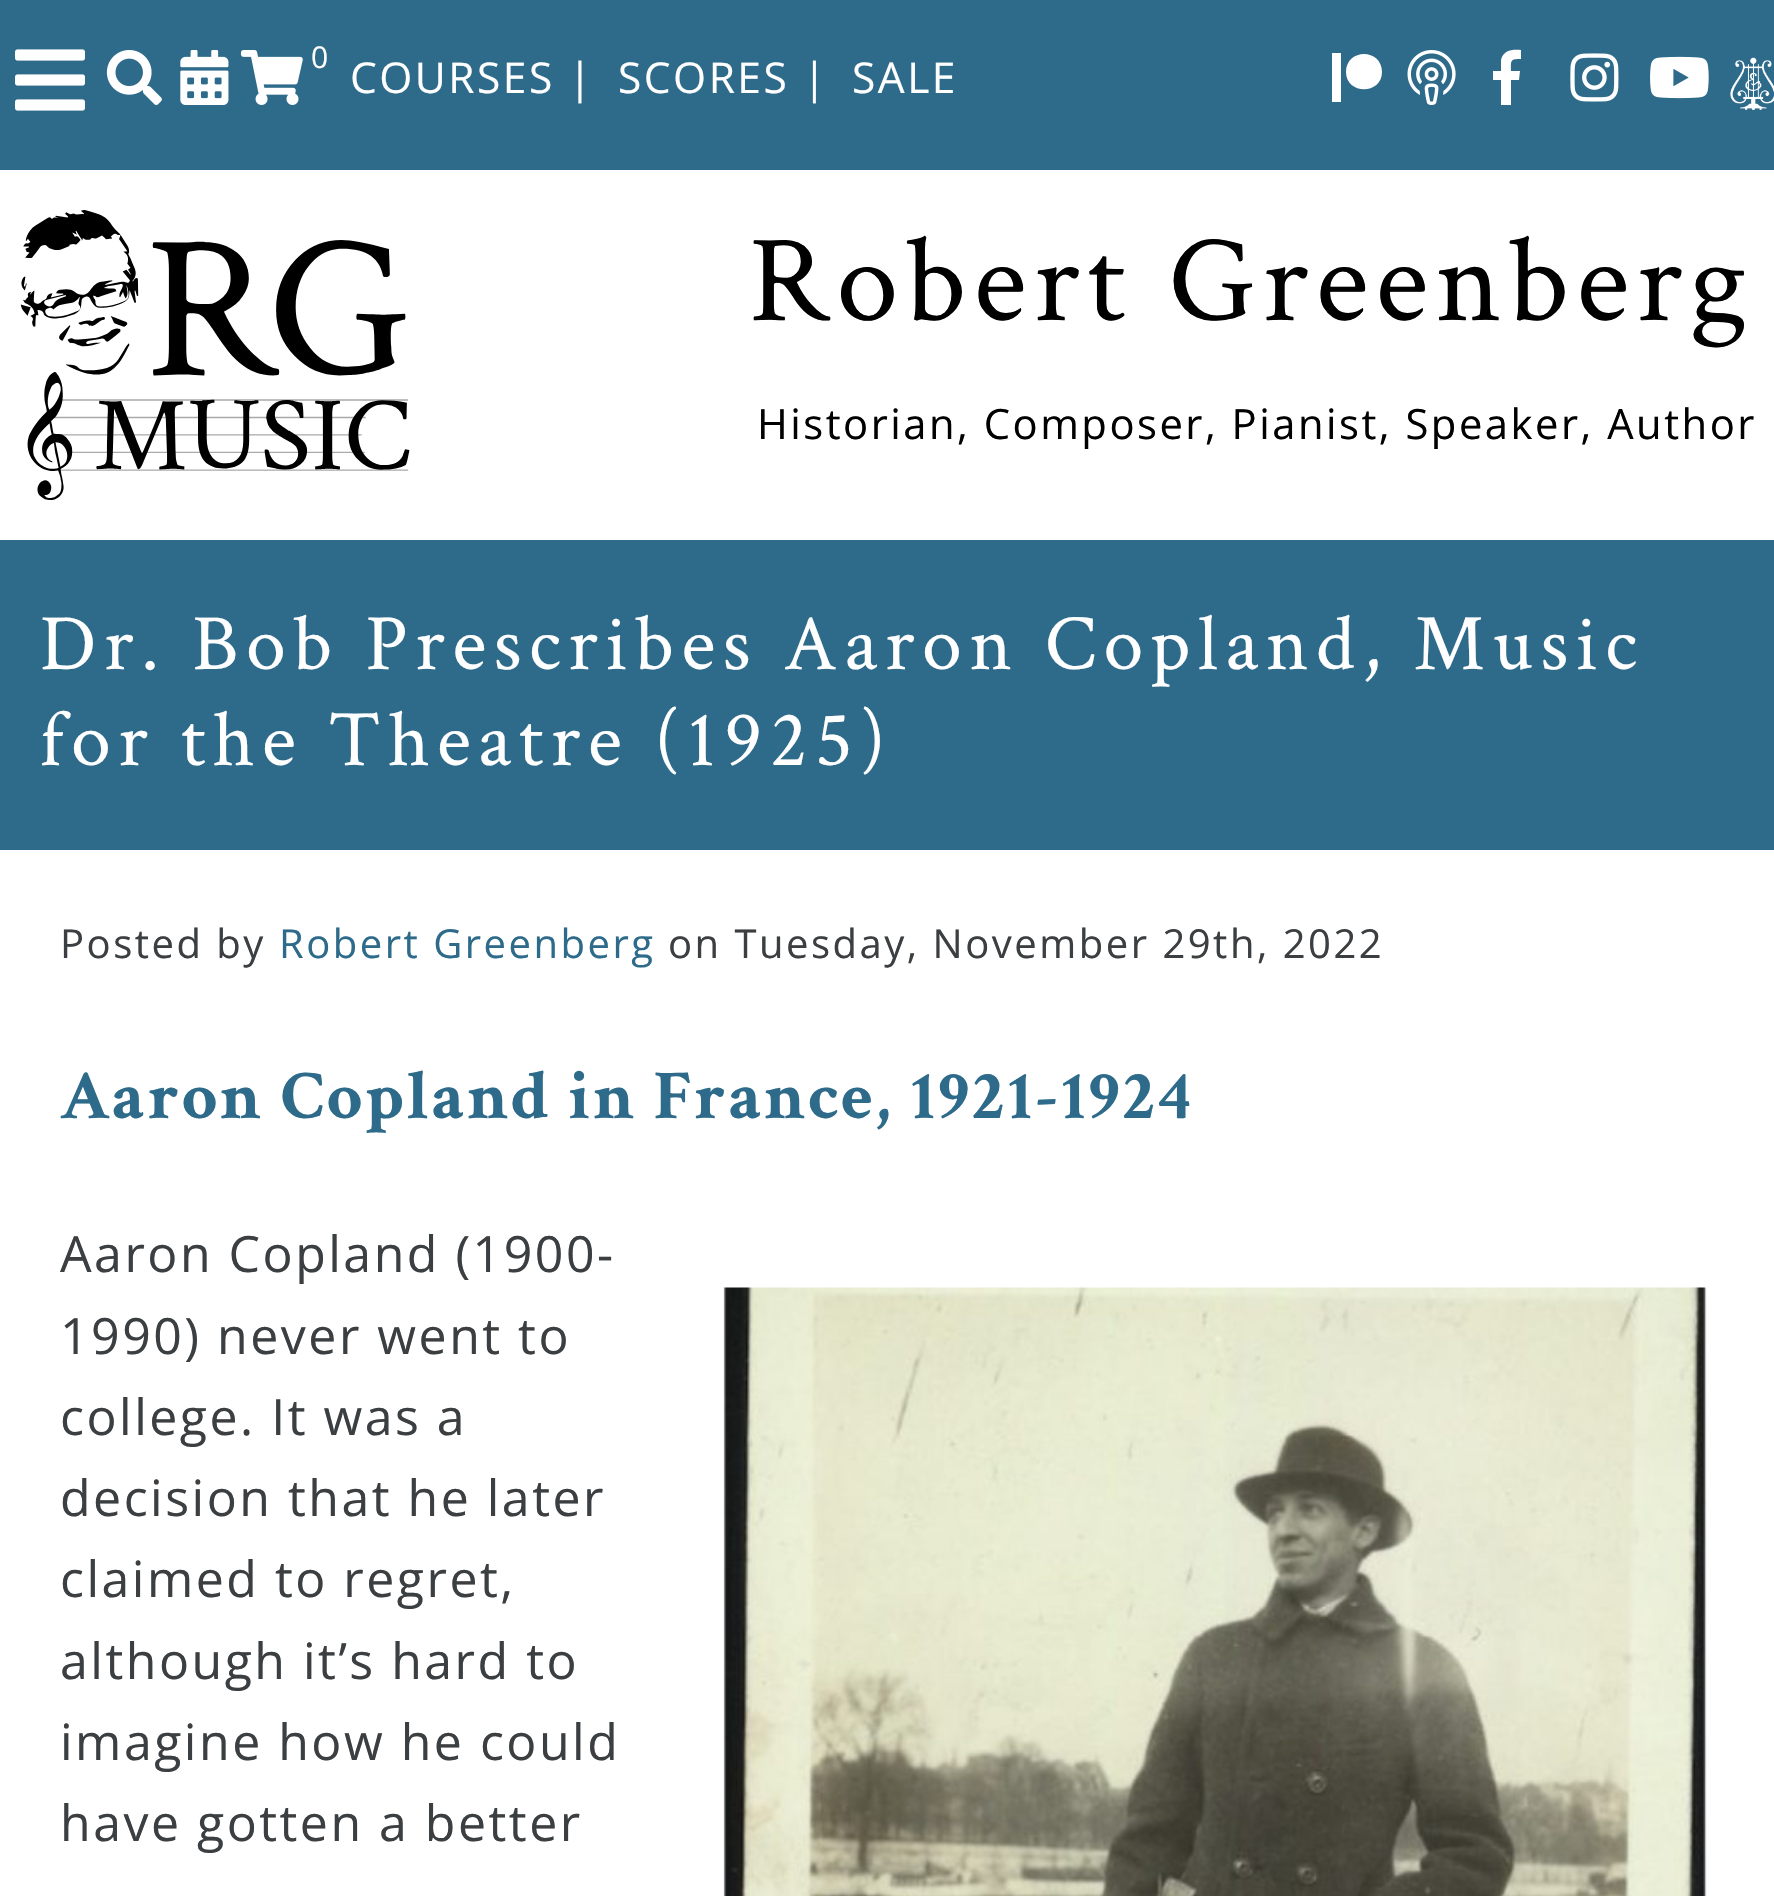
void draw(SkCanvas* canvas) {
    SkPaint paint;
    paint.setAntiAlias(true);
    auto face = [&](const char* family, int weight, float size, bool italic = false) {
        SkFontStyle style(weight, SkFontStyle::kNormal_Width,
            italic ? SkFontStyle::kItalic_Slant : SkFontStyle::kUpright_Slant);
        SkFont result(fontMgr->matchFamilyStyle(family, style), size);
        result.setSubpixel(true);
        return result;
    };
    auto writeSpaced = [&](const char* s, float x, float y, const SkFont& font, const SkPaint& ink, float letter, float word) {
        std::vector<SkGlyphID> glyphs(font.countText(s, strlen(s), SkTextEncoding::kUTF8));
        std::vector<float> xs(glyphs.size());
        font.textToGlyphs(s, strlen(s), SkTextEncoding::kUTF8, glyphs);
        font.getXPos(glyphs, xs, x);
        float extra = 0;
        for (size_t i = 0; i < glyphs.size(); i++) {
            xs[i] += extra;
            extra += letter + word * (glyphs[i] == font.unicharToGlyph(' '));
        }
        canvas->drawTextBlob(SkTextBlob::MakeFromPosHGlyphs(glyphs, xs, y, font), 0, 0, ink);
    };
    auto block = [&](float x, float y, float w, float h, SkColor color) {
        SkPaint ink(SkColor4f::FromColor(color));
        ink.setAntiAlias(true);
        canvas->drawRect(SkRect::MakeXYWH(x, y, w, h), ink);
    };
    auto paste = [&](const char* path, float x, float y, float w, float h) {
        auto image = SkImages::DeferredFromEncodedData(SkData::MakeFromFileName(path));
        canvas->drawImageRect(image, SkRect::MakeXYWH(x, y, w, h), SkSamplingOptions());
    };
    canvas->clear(SkColorSetRGB(46, 107, 138));
    paste("pic1.png", 15, 49, 70, 62);
    paste("pic2.png", 106, 50, 56, 55);
    paste("pic3.png", 180, 50, 49, 55);
    paste("pic4.png", 240, 50, 63, 55);
    auto kFont1 = face("Open Sans", 400, 30);
    paint.setColor(SK_ColorWHITE);
    writeSpaced("0", 311, 68, kFont1, paint, 2.5f, 0);
    auto kFont2 = face("Open Sans", 400, 42.5f);
    writeSpaced("COURSES |", 350, 93, kFont2, paint, 2.5f, 0);
    writeSpaced("SCORES |", 618, 93, kFont2, paint, 2.5f, 0);
    writeSpaced("SALE", 852, 93, kFont2, paint, 2.5f, 0);
    canvas->drawPath(SkPathBuilder().moveTo(1382, 72).cubicTo(1382, 95, 1346, 95, 1346, 72).cubicTo(1346, 48, 1382, 48, 1382, 72).close().moveTo(1332, 102).lineTo(1341, 102).lineTo(1341, 53).lineTo(1332, 53).close().detach(), paint);
    paste("pic5.png", 1407, 50, 49, 55);
    canvas->drawPath(SkPathBuilder().moveTo(1501, 105).lineTo(1501, 80).lineTo(1493, 80).lineTo(1493, 71).lineTo(1501, 71).lineTo(1501, 60).cubicTo(1503, 50, 1513, 49, 1521, 50).lineTo(1521, 59).cubicTo(1510, 59, 1511, 60, 1511, 71).lineTo(1520, 71).lineTo(1519, 80).lineTo(1511, 80).lineTo(1511, 105).detach(), paint);
    paste("pic6.png", 1570, 53, 49, 49);
    paste("pic7.png", 1650, 56, 59, 43);
    paste("pic8.png", 1730, 57, 44, 53);
    block(0, 170, 1774, 370, SK_ColorWHITE);
    paste("pic9.png", 20, 210, 390, 290);
    auto kFont3 = face("Crimson Text", 400, 124.25f);
    paint.setColor(SK_ColorBLACK);
    writeSpaced("Robert Greenberg", 749, 320, kFont3, paint, 7.5f, 0);
    auto kFont4 = face("Open Sans", 400, 41.75f);
    writeSpaced("Historian, Composer, Pianist, Speaker, Author", 757, 439, kFont4, paint, 2.5f, 0);
    block(0, 850, 1774, 1046, SK_ColorWHITE);
    auto kFont5 = face("Crimson Text", 400, 80);
    paint.setColor(SK_ColorWHITE);
    writeSpaced("Dr. Bob Prescribes Aaron Copland, Music", 40, 669, kFont5, paint, 7.5f, 0);
    writeSpaced("for the Theatre (1925)", 40, 765, kFont5, paint, 7.5f, 0);
    auto kFont6 = face("Open Sans", 400, 40);
    paint.setColor(SkColorSetRGB(59, 63, 65));
    writeSpaced("Posted by", 60, 958, kFont6, paint, 2.5f, 0);
    paint.setColor(SkColorSetRGB(46, 107, 138));
    writeSpaced("Robert Greenberg", 279, 958, kFont6, paint, 2.5f, 0);
    paint.setColor(SkColorSetRGB(59, 63, 65));
    writeSpaced("on Tuesday, November 29th, 2022", 668, 958, kFont6, paint, 2.5f, 0);
    auto kFont7 = face("Crimson Text", 700, 70);
    paint.setColor(SkColorSetRGB(46, 107, 138));
    writeSpaced("Aaron Copland in France, 1921-1924", 60, 1118, kFont7, paint, 2.5f, 0);
    auto kFont8 = face("Open Sans", 400, 50);
    paint.setColor(SkColorSetRGB(59, 63, 65));
    writeSpaced("Aaron Copland (1900-", 60, 1272, kFont8, paint, 2.5f, 0);
    writeSpaced("1990) never went to", 60, 1354, kFont8, paint, 2.5f, 0);
    writeSpaced("college. It was a", 60, 1435, kFont8, paint, 2.5f, 0);
    writeSpaced("decision that he later", 60, 1516, kFont8, paint, 2.5f, 0);
    writeSpaced("claimed to regret,", 60, 1597, kFont8, paint, 2.5f, 0);
    writeSpaced("although it’s hard to", 60, 1679, kFont8, paint, 2.5f, 0);
    writeSpaced("imagine how he could", 60, 1760, kFont8, paint, 2.5f, 0);
    writeSpaced("have gotten a better", 60, 1841, kFont8, paint, 2.5f, 0);
    paste("pic10.png", 723, 1287, 984, 609);
}
